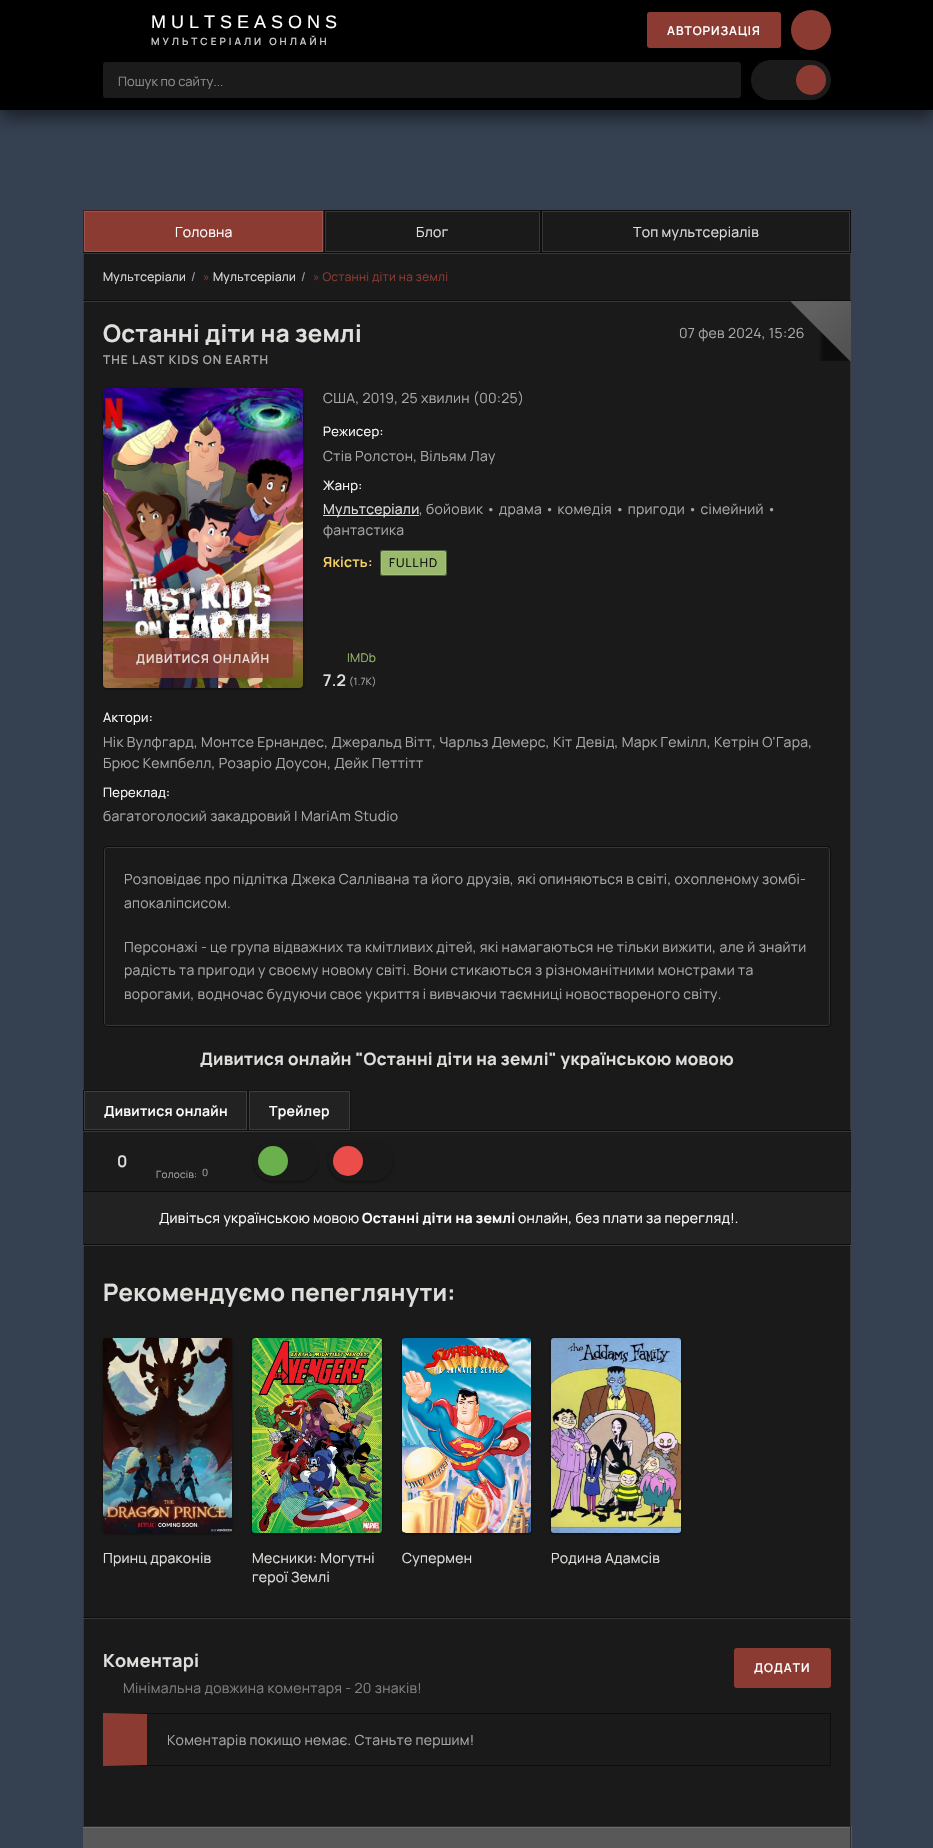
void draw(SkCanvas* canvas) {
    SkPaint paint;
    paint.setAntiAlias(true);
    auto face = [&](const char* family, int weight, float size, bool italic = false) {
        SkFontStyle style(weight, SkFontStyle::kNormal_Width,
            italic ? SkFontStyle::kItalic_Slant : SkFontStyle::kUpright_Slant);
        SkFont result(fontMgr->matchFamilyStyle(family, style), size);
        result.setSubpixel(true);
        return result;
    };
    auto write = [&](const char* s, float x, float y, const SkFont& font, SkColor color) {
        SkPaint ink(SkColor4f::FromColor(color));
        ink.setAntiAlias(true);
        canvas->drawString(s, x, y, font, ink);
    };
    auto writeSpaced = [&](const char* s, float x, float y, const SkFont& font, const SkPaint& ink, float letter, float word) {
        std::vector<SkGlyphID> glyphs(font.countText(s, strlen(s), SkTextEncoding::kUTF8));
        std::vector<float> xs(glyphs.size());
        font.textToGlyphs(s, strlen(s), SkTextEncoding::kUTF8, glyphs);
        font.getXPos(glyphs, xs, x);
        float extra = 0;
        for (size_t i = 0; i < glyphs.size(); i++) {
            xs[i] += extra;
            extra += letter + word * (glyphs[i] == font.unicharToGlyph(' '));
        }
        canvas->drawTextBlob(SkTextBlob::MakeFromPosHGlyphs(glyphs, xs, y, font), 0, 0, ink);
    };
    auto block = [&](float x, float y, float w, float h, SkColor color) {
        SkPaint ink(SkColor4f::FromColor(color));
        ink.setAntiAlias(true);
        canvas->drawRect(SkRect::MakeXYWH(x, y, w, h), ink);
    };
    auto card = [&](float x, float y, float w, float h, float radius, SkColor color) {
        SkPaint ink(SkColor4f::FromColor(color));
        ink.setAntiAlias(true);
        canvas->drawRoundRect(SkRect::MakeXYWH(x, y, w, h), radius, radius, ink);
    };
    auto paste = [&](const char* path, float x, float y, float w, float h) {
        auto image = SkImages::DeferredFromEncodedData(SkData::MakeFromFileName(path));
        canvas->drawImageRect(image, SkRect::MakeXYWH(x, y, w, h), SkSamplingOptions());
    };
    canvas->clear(SkColorSetRGB(53, 64, 81));
    paint.setColor(SkColorSetARGB(128, 0, 0, 0));
    paint.setMaskFilter(SkMaskFilter::MakeBlur(kNormal_SkBlurStyle, 8));
    canvas->drawRect(SkRect::MakeXYWH(0, 8, 933, 110), paint);
    paint.setMaskFilter(nullptr);
    block(0, 0, 933, 110, SK_ColorBLACK);
    auto kFont1 = face("Liberation Sans", 400, 18);
    paint.setColor(SK_ColorWHITE);
    writeSpaced("MULTSEASONS", 151, 28, kFont1, paint, 5, 0);
    auto kFont2 = face("Manrope", 600, 10);
    paint.setColor(SkColorSetRGB(204, 204, 204));
    writeSpaced("МУЛЬТСЕРІАЛИ ОНЛАЙН", 151, 45, kFont2, paint, 3, 0);
    card(647, 12, 134, 36, 3, SkColorSetRGB(139, 59, 50));
    auto kFont3 = face("Manrope", 600, 12);
    paint.setColor(SK_ColorWHITE);
    writeSpaced("АВТОРИЗАЦІЯ", 667, 35, kFont3, paint, 1, 0);
    paint.setColor(SkColorSetRGB(139, 59, 50));
    canvas->drawCircle(811, 30, 20, paint);
    card(103, 62, 638, 36, 3, SkColorSetRGB(27, 27, 27));
    auto kFont4 = face("Manrope", 400, 13);
    write("Пошук по сайту...", 118, 86, kFont4, SkColorSetRGB(140, 140, 140));
    card(751, 60, 80, 40, 20, SkColorSetRGB(27, 27, 27));
    canvas->drawCircle(811, 80, 15, paint);
    block(83, 210, 241, 42, SkColorSetRGB(139, 59, 50));
    paint.setStyle(SkPaint::kStroke_Style);
    paint.setStrokeWidth(1);
    paint.setColor(SkColorSetRGB(154, 84, 76));
    canvas->drawRect(SkRect::MakeXYWH(84.5f, 211.5f, 238, 40), paint);
    paint.setStyle(SkPaint::kFill_Style);
    paint.setColor(SkColorSetRGB(70, 30, 25));
    canvas->drawPath(SkPathBuilder().moveTo(83, 210).lineTo(324, 210).lineTo(323, 211).lineTo(84, 211).close().detach(), paint);
    paint.setColor(SkColorSetARGB(128, 0, 0, 0));
    canvas->drawPath(SkPathBuilder().moveTo(324, 210).lineTo(324, 252).lineTo(323, 252).lineTo(323, 211).close().detach(), paint);
    canvas->drawPath(SkPathBuilder().moveTo(83, 252).lineTo(83, 210).lineTo(84, 211).lineTo(84, 252).close().detach(), paint);
    auto kFont5 = face("Manrope", 400, 14);
    paint.setColor(SK_ColorWHITE);
    writeSpaced("Головна", 175, 237, kFont5, paint, 0.28f, 0);
    block(324, 210, 527, 42, SkColorSetRGB(26, 26, 26));
    paint.setStyle(SkPaint::kStroke_Style);
    paint.setColor(SkColorSetRGB(55, 55, 55));
    canvas->drawRect(SkRect::MakeXYWH(325.5f, 211.5f, 214, 40), paint);
    paint.setStyle(SkPaint::kFill_Style);
    paint.setColor(SkColorSetRGB(13, 13, 13));
    canvas->drawPath(SkPathBuilder().moveTo(324, 210).lineTo(541, 210).lineTo(540, 211).lineTo(325, 211).close().detach(), paint);
    paint.setColor(SkColorSetARGB(128, 0, 0, 0));
    canvas->drawPath(SkPathBuilder().moveTo(541, 210).lineTo(541, 252).lineTo(540, 252).lineTo(540, 211).close().detach(), paint);
    canvas->drawPath(SkPathBuilder().moveTo(324, 252).lineTo(324, 210).lineTo(325, 211).lineTo(325, 252).close().detach(), paint);
    paint.setColor(SkColorSetRGB(224, 223, 220));
    writeSpaced("Блог", 416, 237, kFont5, paint, 0.28f, 0);
    paint.setStyle(SkPaint::kStroke_Style);
    paint.setColor(SkColorSetRGB(55, 55, 55));
    canvas->drawRect(SkRect::MakeXYWH(542.5f, 211.5f, 307, 40), paint);
    paint.setStyle(SkPaint::kFill_Style);
    paint.setColor(SkColorSetRGB(13, 13, 13));
    canvas->drawPath(SkPathBuilder().moveTo(541, 210).lineTo(851, 210).lineTo(850, 211).lineTo(542, 211).close().detach(), paint);
    paint.setColor(SkColorSetARGB(128, 0, 0, 0));
    canvas->drawPath(SkPathBuilder().moveTo(851, 210).lineTo(851, 252).lineTo(850, 252).lineTo(850, 211).close().detach(), paint);
    canvas->drawPath(SkPathBuilder().moveTo(541, 252).lineTo(541, 210).lineTo(542, 211).lineTo(542, 252).close().detach(), paint);
    paint.setColor(SkColorSetRGB(224, 223, 220));
    writeSpaced("Топ мультсеріалів", 633, 237, kFont5, paint, 0.28f, 0);
    block(84, 254, 766, 1572, SkColorSetRGB(26, 26, 26));
    paint.setStyle(SkPaint::kStroke_Style);
    paint.setColor(SkColorSetRGB(55, 55, 55));
    canvas->drawRect(SkRect::MakeXYWH(83.5f, 253.5f, 767, 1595), paint);
    block(83, 252, 768, 1, SkColorSetRGB(13, 13, 13));
    auto kFont6 = face("Manrope", 400, 12);
    paint.setStyle(SkPaint::kFill_Style);
    paint.setColor(SkColorSetRGB(224, 223, 220));
    writeSpaced("Мультсеріали", 103, 281, kFont6, paint, 0.28f, 0);
    paint.setColor(SkColorSetRGB(168, 168, 168));
    writeSpaced("/", 191, 281, kFont6, paint, 0.28f, 0);
    paint.setColor(SkColorSetRGB(139, 59, 50));
    writeSpaced("»", 203, 281, kFont6, paint, 0.28f, 0);
    paint.setColor(SkColorSetRGB(224, 223, 220));
    writeSpaced("Мультсеріали", 213, 281, kFont6, paint, 0.28f, 0);
    paint.setColor(SkColorSetRGB(168, 168, 168));
    writeSpaced("/", 301, 281, kFont6, paint, 0.28f, 0);
    paint.setColor(SkColorSetRGB(139, 59, 50));
    writeSpaced("» Останні діти на землі", 313, 281, kFont6, paint, 0.28f, 0);
    block(83, 301, 768, 1, SkColorSetARGB(31, 255, 255, 255));
    block(83, 300, 768, 1, SkColorSetARGB(128, 0, 0, 0));
    auto kFont7 = face("Manrope", 700, 24);
    paint.setColor(SkColorSetRGB(224, 223, 220));
    writeSpaced("Останні діти на землі", 103, 342, kFont7, paint, 0.28f, 0);
    paint.setColor(SkColorSetRGB(168, 168, 168));
    writeSpaced("THE LAST KIDS ON EARTH", 103, 364, kFont3, paint, 1, 0);
    writeSpaced("07 фев 2024, 15:26", 679, 338, kFont5, paint, 0.28f, 0);
    paint.setColor(SkColorSetRGB(154, 185, 109));
    writeSpaced("IMDb", 347, 662, kFont6, paint, 0.28f, 0);
    auto kFont8 = face("Manrope", 600, 16);
    paint.setColor(SkColorSetRGB(224, 223, 220));
    writeSpaced("7.2", 323, 686, kFont8, paint, 0.28f, 0);
    auto kFont9 = face("Manrope", 400, 10);
    paint.setColor(SkColorSetRGB(168, 168, 168));
    writeSpaced("(1.7К)", 349, 685, kFont9, paint, 0.28f, 0);
    writeSpaced("США, 2019, 25 хвилин (00:25)", 323, 403, kFont5, paint, 0.28f, 0);
    paint.setColor(SK_ColorWHITE);
    writeSpaced("Режисер:", 323, 436, kFont4, paint, 0.28f, 0);
    paint.setColor(SkColorSetRGB(168, 168, 168));
    writeSpaced("Стів Ролстон, Вільям Лау", 323, 461, kFont5, paint, 0.28f, 0);
    paint.setColor(SK_ColorWHITE);
    writeSpaced("Жанр:", 323, 490, kFont4, paint, 0.28f, 0);
    block(323, 515, 96, 1, SkColorSetRGB(224, 223, 220));
    paint.setColor(SkColorSetRGB(224, 223, 220));
    writeSpaced("Мультсеріали", 323, 514, kFont5, paint, 0.28f, 0);
    paint.setColor(SkColorSetRGB(168, 168, 168));
    writeSpaced(", бойовик • драма • комедія • пригоди • сімейний •", 419, 514, kFont5, paint, 0.28f, 0);
    writeSpaced("фантастика", 323, 535, kFont5, paint, 0.28f, 0);
    auto kFont10 = face("Manrope", 600, 14);
    paint.setColor(SkColorSetRGB(248, 210, 104));
    writeSpaced("Якість:", 323, 567, kFont10, paint, 0.28f, 0);
    card(380, 550, 67, 26, 3, SkColorSetRGB(154, 185, 109));
    paint.setStyle(SkPaint::kStroke_Style);
    paint.setColor(SkColorSetRGB(167, 194, 127));
    canvas->drawRoundRect(SkRect::MakeXYWH(381.5f, 551.5f, 64, 23), 1.5f, 1.5f, paint);
    paint.setColor(SkColorSetARGB(128, 0, 0, 0));
    canvas->drawRoundRect(SkRect::MakeXYWH(380.5f, 550.5f, 66, 25), 2.5f, 2.5f, paint);
    paint.setStyle(SkPaint::kFill_Style);
    paint.setColor(SK_ColorBLACK);
    writeSpaced("FULLHD", 389, 567, kFont6, paint, 1, 0);
    canvas->save();
    canvas->clipRect(SkRect::MakeXYWH(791, 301, 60, 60));
    paint.setColor(SkColorSetARGB(128, 0, 0, 0));
    paint.setMaskFilter(SkMaskFilter::MakeBlur(kNormal_SkBlurStyle, 1.5f));
    canvas->drawRect(SkRect::MakeXYWH(821, 302, 60, 60), paint);
    paint.setMaskFilter(nullptr);
    canvas->restore();
    canvas->save();
    canvas->clipRect(SkRect::MakeXYWH(791, 301, 60, 60));
    {
        const SkColor colors[] = {SkColorSetRGB(96, 96, 96), SkColorSetRGB(74, 74, 74)};
        const float stops[] = {0, 1};
        const SkPoint ends[] = {{821, 301}, {881, 361}};
        paint.setShader(SkGradientShader::MakeLinear(ends, colors, stops, 2, SkTileMode::kClamp));
        paint.setAlpha(255);
    }
    canvas->drawPath(SkPathBuilder().moveTo(790, 301).lineTo(850, 301).lineTo(910, 361).lineTo(850, 361).close().detach(), paint);
    canvas->restore();
    paint.setShader(nullptr);
    paint.setColor(SkColorSetARGB(128, 0, 0, 0));
    paint.setMaskFilter(SkMaskFilter::MakeBlur(kNormal_SkBlurStyle, 1.5f));
    canvas->drawRoundRect(SkRect::MakeXYWH(103, 389, 200, 300), 4, 4, paint);
    paint.setMaskFilter(nullptr);
    paste("pic1.png", 103, 388, 200, 300);
    card(113, 638, 180, 40, 3, SkColorSetARGB(204, 139, 59, 50));
    paint.setColor(SkColorSetRGB(230, 217, 214));
    writeSpaced("ДИВИТИСЯ ОНЛАЙН", 136, 663, kFont3, paint, 1, 0);
    paint.setColor(SK_ColorWHITE);
    writeSpaced("Актори:", 103, 722, kFont4, paint, 0.28f, 0);
    paint.setColor(SkColorSetRGB(168, 168, 168));
    writeSpaced("Нік Вулфгард, Монтсе Ернандес, Джеральд Вітт, Чарльз Демерс, Кіт Девід, Марк Гемілл, Кетрін О'Гара,", 103, 747, kFont5, paint, 0.28f, 0);
    writeSpaced("Брюс Кемпбелл, Розаріо Доусон, Дейк Петтітт", 103, 768, kFont5, paint, 0.28f, 0);
    paint.setColor(SK_ColorWHITE);
    writeSpaced("Переклад:", 103, 797, kFont4, paint, 0.28f, 0);
    paint.setColor(SkColorSetRGB(168, 168, 168));
    writeSpaced("багатоголосий закадровий | MariAm Studio", 103, 821, kFont5, paint, 0.28f, 0);
    paint.setStyle(SkPaint::kStroke_Style);
    paint.setColor(SkColorSetRGB(55, 55, 55));
    canvas->drawRoundRect(SkRect::MakeXYWH(104.5f, 847.5f, 725, 178), 2.5f, 2.5f, paint);
    paint.setColor(SkColorSetRGB(13, 13, 13));
    canvas->drawRoundRect(SkRect::MakeXYWH(103.5f, 846.5f, 727, 180), 3.5f, 3.5f, paint);
    paint.setStyle(SkPaint::kFill_Style);
    paint.setColor(SkColorSetRGB(168, 168, 168));
    writeSpaced("Розповідає про підлітка Джека Саллівана та його друзів, які опиняються в світі, охопленому зомбі-", 124, 884, kFont5, paint, 0.28f, 0);
    writeSpaced("апокаліпсисом.", 124, 908, kFont5, paint, 0.28f, 0);
    writeSpaced("Персонажі - це група відважних та кмітливих дітей, які намагаються не тільки вижити, але й знайти", 124, 952, kFont5, paint, 0.28f, 0);
    writeSpaced("радість та пригоди у своєму новому світі. Вони стикаються з різноманітними монстрами та", 124, 975, kFont5, paint, 0.28f, 0);
    writeSpaced("ворогами, водночас будуючи своє укриття і вивчаючи таємниці новоствореного світу.", 124, 999, kFont5, paint, 0.28f, 0);
    auto kFont11 = face("Manrope", 700, 17);
    paint.setColor(SkColorSetRGB(224, 223, 220));
    writeSpaced("Дивитися онлайн \"Останні діти на землі\" українською мовою", 200, 1065, kFont11, paint, 0.28f, 0);
    block(83, 1090, 268, 40, SkColorSetRGB(34, 34, 34));
    paint.setStyle(SkPaint::kStroke_Style);
    paint.setColor(SkColorSetRGB(62, 62, 62));
    canvas->drawRect(SkRect::MakeXYWH(84.5f, 1091.5f, 162, 38), paint);
    paint.setStyle(SkPaint::kFill_Style);
    paint.setColor(SkColorSetRGB(17, 17, 17));
    canvas->drawPath(SkPathBuilder().moveTo(83, 1090).lineTo(248, 1090).lineTo(247, 1091).lineTo(84, 1091).close().detach(), paint);
    paint.setColor(SkColorSetARGB(128, 0, 0, 0));
    canvas->drawPath(SkPathBuilder().moveTo(248, 1090).lineTo(248, 1130).lineTo(247, 1130).lineTo(247, 1091).close().detach(), paint);
    canvas->drawPath(SkPathBuilder().moveTo(83, 1130).lineTo(83, 1090).lineTo(84, 1091).lineTo(84, 1130).close().detach(), paint);
    paint.setColor(SK_ColorWHITE);
    writeSpaced("Дивитися онлайн", 104, 1116, kFont10, paint, 0.28f, 0);
    paint.setStyle(SkPaint::kStroke_Style);
    paint.setColor(SkColorSetRGB(62, 62, 62));
    canvas->drawRect(SkRect::MakeXYWH(249.5f, 1091.5f, 100, 38), paint);
    paint.setStyle(SkPaint::kFill_Style);
    paint.setColor(SkColorSetRGB(17, 17, 17));
    canvas->drawPath(SkPathBuilder().moveTo(248, 1090).lineTo(351, 1090).lineTo(350, 1091).lineTo(249, 1091).close().detach(), paint);
    paint.setColor(SkColorSetARGB(128, 0, 0, 0));
    canvas->drawPath(SkPathBuilder().moveTo(351, 1090).lineTo(351, 1130).lineTo(350, 1130).lineTo(350, 1091).close().detach(), paint);
    canvas->drawPath(SkPathBuilder().moveTo(248, 1130).lineTo(248, 1090).lineTo(249, 1091).lineTo(249, 1130).close().detach(), paint);
    paint.setColor(SK_ColorWHITE);
    writeSpaced("Трейлер", 269, 1116, kFont10, paint, 0.28f, 0);
    block(83, 1132, 768, 59, SkColorSetRGB(27, 27, 27));
    block(83, 1131, 768, 1, SkColorSetRGB(56, 56, 56));
    block(83, 1130, 768, 1, SkColorSetRGB(14, 14, 14));
    block(83, 1191, 768, 1, SkColorSetRGB(14, 14, 14));
    paint.setColor(SkColorSetRGB(224, 223, 220));
    writeSpaced("0", 117, 1167, kFont8, paint, 0.28f, 0);
    paint.setColor(SkColorSetRGB(168, 168, 168));
    writeSpaced("Голосів:", 156, 1178, kFont9, paint, 0.28f, 0);
    writeSpaced("0", 202, 1176, kFont9, paint, 0.28f, 0);
    paint.setColor(SkColorSetARGB(128, 0, 0, 0));
    paint.setMaskFilter(SkMaskFilter::MakeBlur(kNormal_SkBlurStyle, 1.5f));
    canvas->drawRoundRect(SkRect::MakeXYWH(253, 1142, 65, 40), 20, 20, paint);
    paint.setMaskFilter(nullptr);
    card(253, 1141, 65, 40, 20, SkColorSetRGB(26, 26, 26));
    paint.setColor(SkColorSetRGB(106, 176, 76));
    canvas->drawCircle(273, 1161, 15, paint);
    paint.setColor(SkColorSetARGB(128, 0, 0, 0));
    paint.setMaskFilter(SkMaskFilter::MakeBlur(kNormal_SkBlurStyle, 1.5f));
    canvas->drawRoundRect(SkRect::MakeXYWH(328, 1142, 65, 40), 20, 20, paint);
    paint.setMaskFilter(nullptr);
    card(328, 1141, 65, 40, 20, SkColorSetRGB(26, 26, 26));
    paint.setColor(SkColorSetRGB(235, 77, 75));
    canvas->drawCircle(348, 1161, 15, paint);
    block(83, 1192, 768, 52, SkColorSetRGB(34, 34, 34));
    paint.setColor(SK_ColorWHITE);
    writeSpaced("Дивіться українською мовою", 159, 1223, kFont5, paint, 0.28f, 0);
    auto kFont12 = face("Manrope", 700, 14);
    writeSpaced("Останні діти на землі", 362, 1223, kFont12, paint, 0.28f, 0);
    writeSpaced("онлайн, без плати за перегляд!.", 518, 1223, kFont5, paint, 0.28f, 0);
    block(83, 1618, 768, 1, SkColorSetARGB(31, 255, 255, 255));
    block(83, 1245, 768, 1, SkColorSetARGB(31, 255, 255, 255));
    block(83, 1244, 768, 1, SkColorSetARGB(128, 0, 0, 0));
    block(83, 1617, 768, 1, SkColorSetARGB(128, 0, 0, 0));
    paint.setColor(SkColorSetRGB(224, 223, 220));
    writeSpaced("Рекомендуємо пепеглянути:", 103, 1301, kFont7, paint, 0.28f, 0);
    paint.setColor(SkColorSetARGB(128, 0, 0, 0));
    paint.setMaskFilter(SkMaskFilter::MakeBlur(kNormal_SkBlurStyle, 1.5f));
    canvas->drawRoundRect(SkRect::MakeXYWH(103, 1339, 129, 195), 3, 3, paint);
    paint.setMaskFilter(nullptr);
    paste("pic2.png", 103, 1338, 129, 195);
    paint.setColor(SkColorSetRGB(224, 223, 220));
    writeSpaced("Принц драконів", 103, 1563, kFont5, paint, 0.28f, 0);
    paint.setColor(SkColorSetARGB(128, 0, 0, 0));
    paint.setMaskFilter(SkMaskFilter::MakeBlur(kNormal_SkBlurStyle, 1.5f));
    canvas->drawRoundRect(SkRect::MakeXYWH(252, 1339, 130, 195), 3, 3, paint);
    paint.setMaskFilter(nullptr);
    paste("pic3.png", 252, 1338, 130, 195);
    paint.setColor(SkColorSetRGB(224, 223, 220));
    writeSpaced("Месники: Могутні", 252, 1563, kFont5, paint, 0.28f, 0);
    writeSpaced("герої Землі", 252, 1582, kFont5, paint, 0.28f, 0);
    paint.setColor(SkColorSetARGB(128, 0, 0, 0));
    paint.setMaskFilter(SkMaskFilter::MakeBlur(kNormal_SkBlurStyle, 1.5f));
    canvas->drawRoundRect(SkRect::MakeXYWH(402, 1339, 129, 195), 3, 3, paint);
    paint.setMaskFilter(nullptr);
    paste("pic4.png", 402, 1338, 129, 195);
    paint.setColor(SkColorSetRGB(224, 223, 220));
    writeSpaced("Супермен", 402, 1563, kFont5, paint, 0.28f, 0);
    paint.setColor(SkColorSetARGB(128, 0, 0, 0));
    paint.setMaskFilter(SkMaskFilter::MakeBlur(kNormal_SkBlurStyle, 1.5f));
    canvas->drawRoundRect(SkRect::MakeXYWH(551, 1339, 130, 195), 3, 3, paint);
    paint.setMaskFilter(nullptr);
    paste("pic5.png", 551, 1338, 130, 195);
    paint.setColor(SkColorSetRGB(224, 223, 220));
    writeSpaced("Родина Адамсів", 551, 1563, kFont5, paint, 0.28f, 0);
    auto kFont13 = face("Manrope", 700, 18);
    writeSpaced("Коментарі", 103, 1667, kFont13, paint, 0.28f, 0);
    card(734, 1648, 97, 40, 3, SkColorSetRGB(139, 59, 50));
    paint.setColor(SK_ColorWHITE);
    writeSpaced("ДОДАТИ", 754, 1672, kFont3, paint, 1, 0);
    paint.setColor(SkColorSetRGB(129, 129, 129));
    writeSpaced("Мінімальна довжина коментаря - 20 знаків!", 123, 1693, kFont5, paint, 0.28f, 0);
    paint.setColor(SkColorSetRGB(13, 13, 13));
    canvas->drawPath(SkPathBuilder().moveTo(103, 1713).lineTo(831, 1713).lineTo(830, 1714).lineTo(147, 1714).close().detach(), paint);
    paint.setColor(SkColorSetARGB(128, 0, 0, 0));
    canvas->drawPath(SkPathBuilder().moveTo(831, 1713).lineTo(831, 1766).lineTo(830, 1765).lineTo(830, 1714).close().detach(), paint);
    canvas->drawPath(SkPathBuilder().moveTo(831, 1766).lineTo(103, 1766).lineTo(147, 1765).lineTo(830, 1765).close().detach(), paint);
    paint.setColor(SkColorSetRGB(139, 59, 50));
    canvas->drawPath(SkPathBuilder().moveTo(103, 1766).lineTo(103, 1713).lineTo(147, 1714).lineTo(147, 1765).close().detach(), paint);
    paint.setColor(SkColorSetRGB(168, 168, 168));
    writeSpaced("Коментарів покищо немає. Станьте першим!", 167, 1745, kFont5, paint, 0.28f, 0);
    block(851, 1826, 1, 22, SkColorSetRGB(78, 88, 103));
    block(83, 1828, 767, 20, SkColorSetRGB(88, 88, 88));
    block(850, 1826, 1, 22, SkColorSetRGB(44, 44, 44));
    block(83, 1827, 767, 1, SkColorSetRGB(109, 109, 109));
    block(83, 1826, 767, 1, SkColorSetRGB(44, 44, 44));
}
